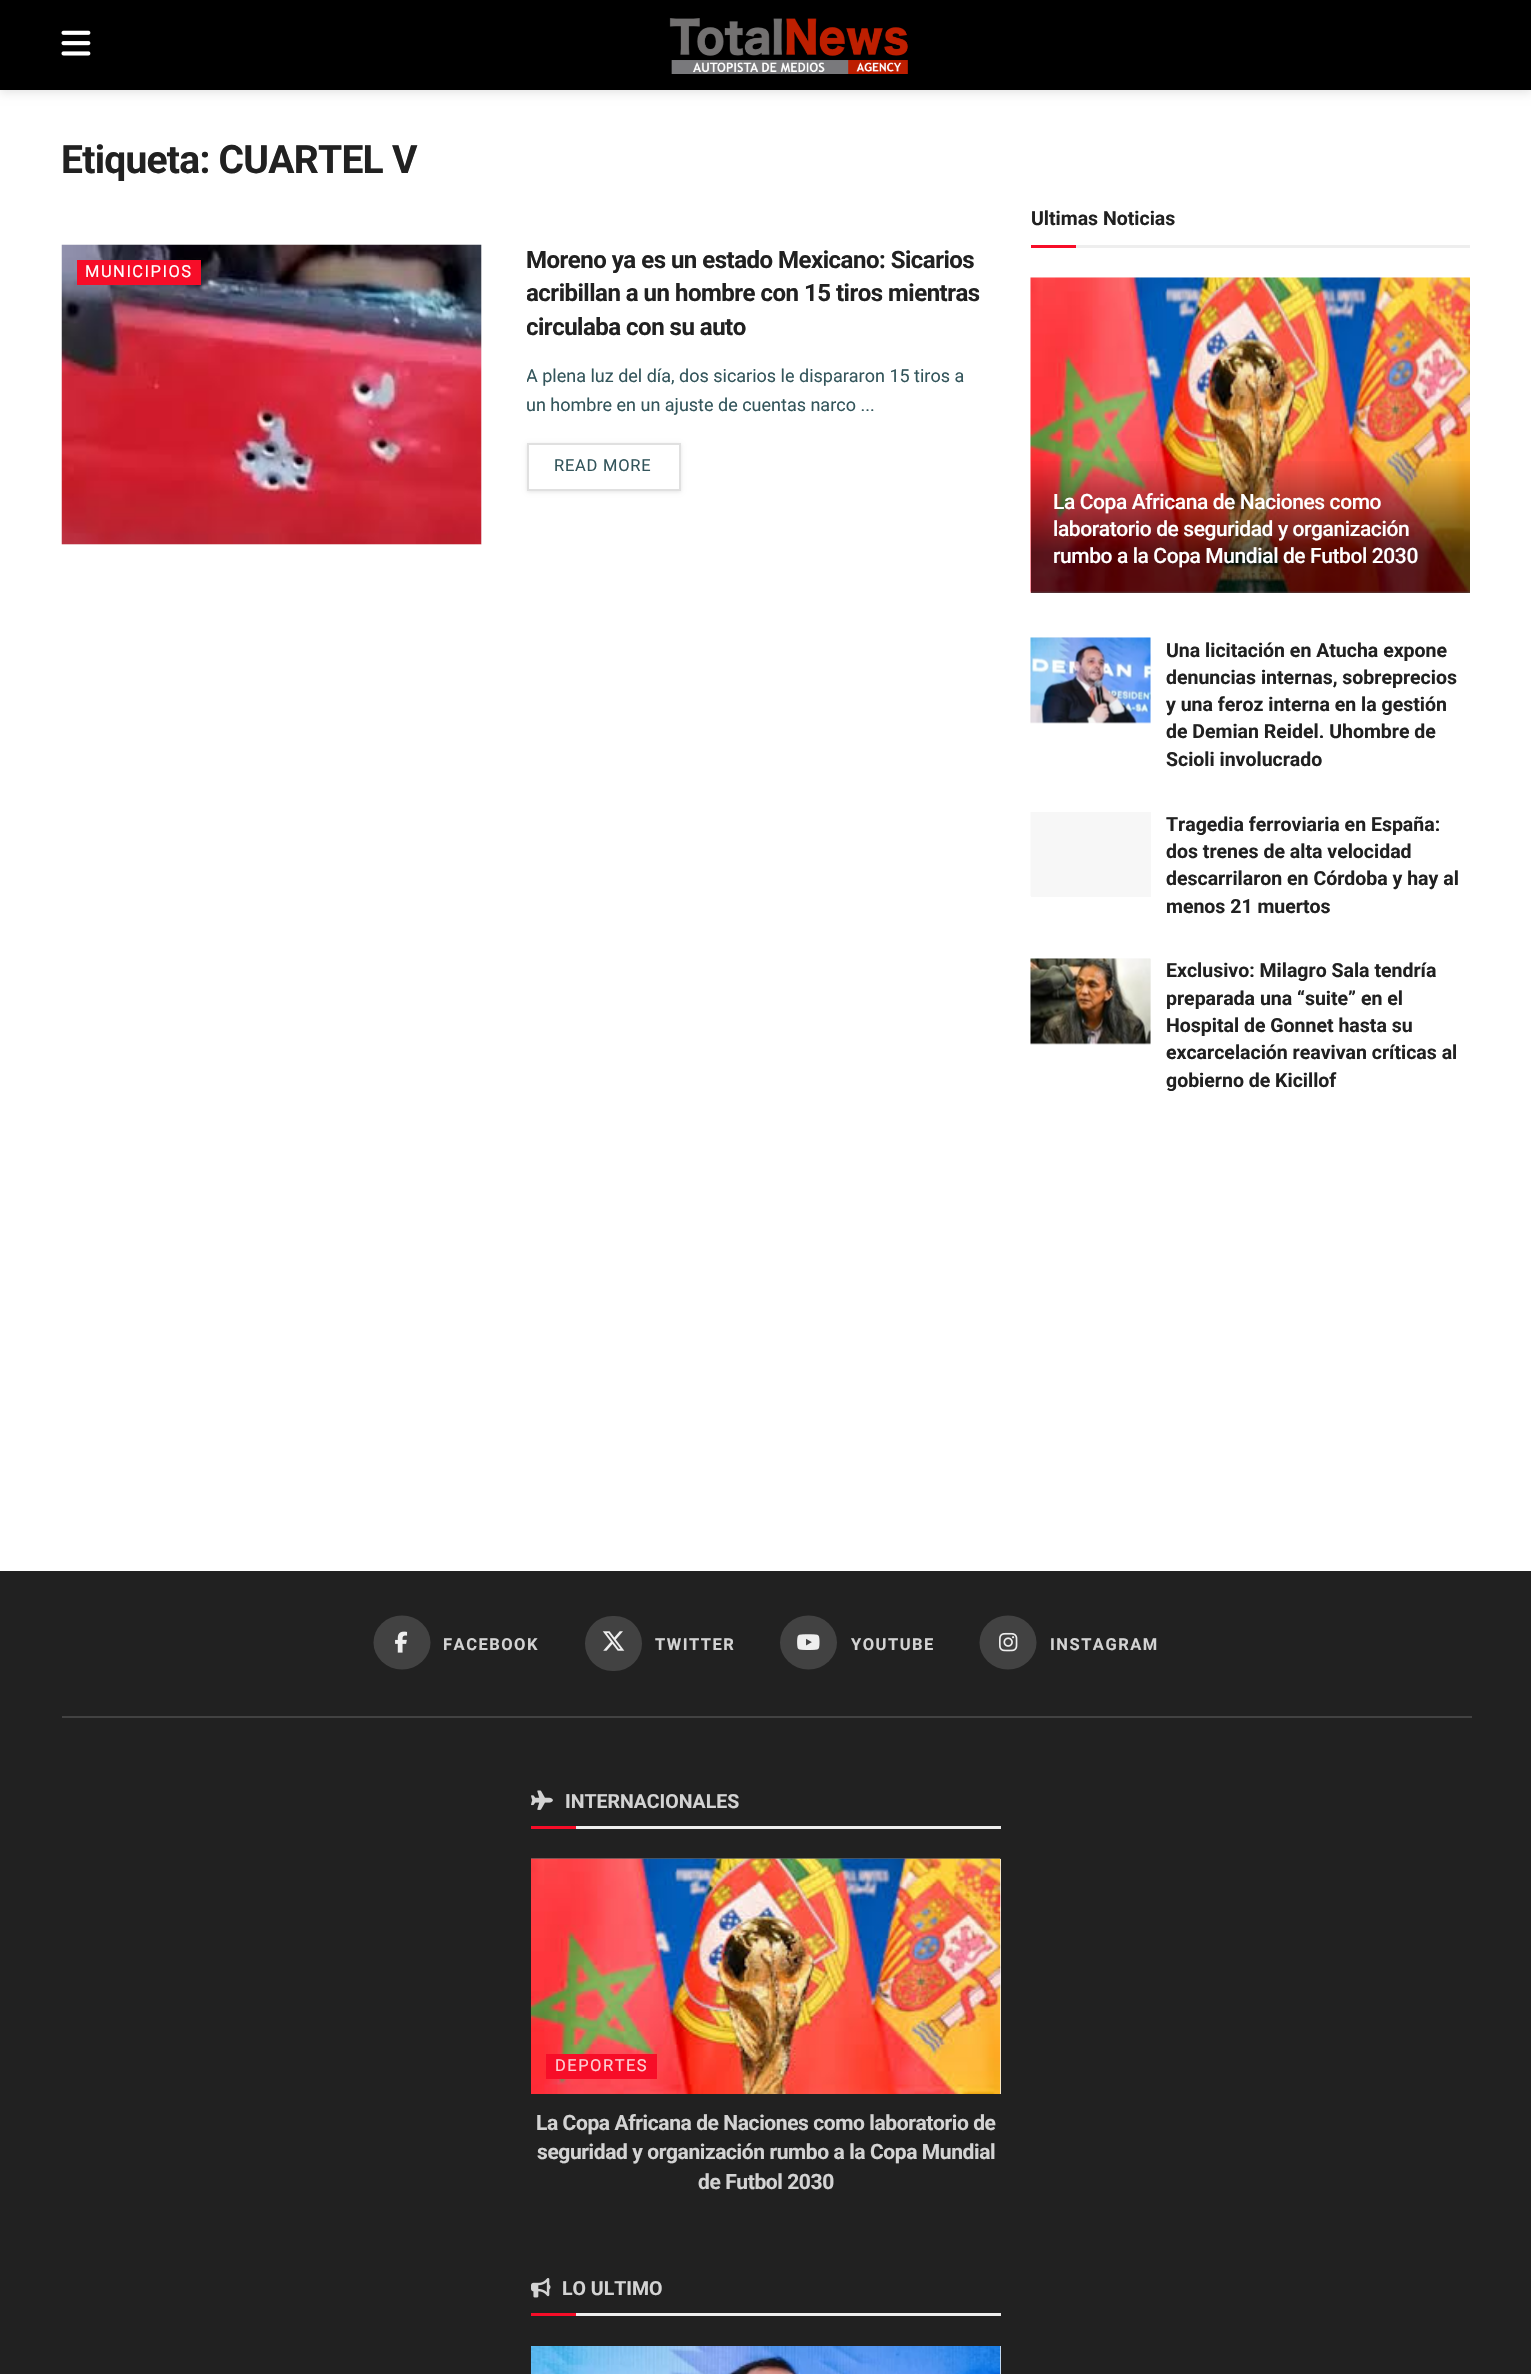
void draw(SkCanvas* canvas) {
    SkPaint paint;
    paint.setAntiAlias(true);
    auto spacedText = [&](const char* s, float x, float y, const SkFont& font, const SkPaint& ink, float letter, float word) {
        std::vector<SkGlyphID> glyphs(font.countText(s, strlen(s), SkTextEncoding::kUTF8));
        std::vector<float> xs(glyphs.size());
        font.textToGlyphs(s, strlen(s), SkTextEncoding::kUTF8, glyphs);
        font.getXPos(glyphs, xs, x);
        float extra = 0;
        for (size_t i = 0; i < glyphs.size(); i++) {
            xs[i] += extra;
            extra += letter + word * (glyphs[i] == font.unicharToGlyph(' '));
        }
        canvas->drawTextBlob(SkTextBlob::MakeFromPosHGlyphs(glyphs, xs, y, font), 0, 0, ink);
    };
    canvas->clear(0xFFFFFFFF);
    paint.setColor(0x1A000000);
    paint.setMaskFilter(SkMaskFilter::MakeBlur(kNormal_SkBlurStyle, 4.5f));
    canvas->drawRect(SkRect::MakeXYWH(0, 3, 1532, 90), paint);
    paint.setMaskFilter(nullptr);
    paint.setColor(0xFF000000);
    canvas->drawRect(SkRect::MakeXYWH(0, 0, 1531, 90), paint);
    canvas->drawImageRect(SkImages::DeferredFromEncodedData(SkData::MakeFromFileName("img1.png")), SkRect::MakeXYWH(61, 30, 30, 26), SkSamplingOptions());
    canvas->drawImageRect(SkImages::DeferredFromEncodedData(SkData::MakeFromFileName("img2.png")), SkRect::MakeXYWH(669, 18, 239, 56), SkSamplingOptions());
    SkFont font1(fontMgr->matchFamilyStyle("Roboto", SkFontStyle::Bold()), 39);
    font1.setSubpixel(true);
    paint.setColor(0xFF212121);
    spacedText("Etiqueta: CUARTEL V", 61, 173, font1, paint, -0.75f, 0);
    paint.setColor(0xFFF7F7F7);
    canvas->drawRect(SkRect::MakeXYWH(62, 245, 420, 300), paint);
    canvas->drawImageRect(SkImages::DeferredFromEncodedData(SkData::MakeFromFileName("img4.png")), SkRect::MakeXYWH(108, 244, 84, 1), SkSamplingOptions());
    canvas->drawImageRect(SkImages::DeferredFromEncodedData(SkData::MakeFromFileName("img3.png")), SkRect::MakeXYWH(61, 244, 421, 301), SkSamplingOptions());
    paint.setColor(0xFFF70D28);
    canvas->drawRect(SkRect::MakeXYWH(77, 260, 124, 25), paint);
    SkFont font2(fontMgr->matchFamilyStyle("Roboto", SkFontStyle::Normal()), 16.5f);
    font2.setSubpixel(true);
    paint.setColor(0xFFFFFFFF);
    spacedText("MUNICIPIOS", 85, 277, font2, paint, 1.5f, 0);
    SkFont font3(fontMgr->matchFamilyStyle("Roboto", SkFontStyle::Bold()), 24);
    font3.setSubpixel(true);
    paint.setColor(0xFF212121);
    spacedText("Moreno ya es un estado Mexicano: Sicarios", 526, 268, font3, paint, -0.5f, 0);
    canvas->save();
    canvas->clipRect(SkRect::MakeXYWH(527, 245, 459, 253));
    spacedText("acribillan a un hombre con 15 tiros mientras", 526, 301, font3, paint, -0.5f, 0);
    spacedText("circulaba con su auto", 526, 335, font3, paint, -0.5f, 0);
    SkFont font4(fontMgr->matchFamilyStyle("Roboto", SkFontStyle::Normal()), 18);
    font4.setSubpixel(true);
    paint.setColor(0xFF33555B);
    canvas->drawString("A plena luz del día, dos sicarios le dispararon 15 tiros a", 526, 382, font4, paint);
    canvas->restore();
    canvas->drawString("un hombre en un ajuste de cuentas narco ...", 526, 411, font4, paint);
    canvas->save();
    canvas->clipPath(SkPathBuilder(SkPathFillType::kEvenOdd).moveTo(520, 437).lineTo(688, 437).lineTo(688, 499).lineTo(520, 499).close().moveTo(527, 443).lineTo(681, 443).lineTo(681, 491).lineTo(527, 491).close().detach(), true);
    paint.setColor(0x1A000000);
    paint.setMaskFilter(SkMaskFilter::MakeBlur(kNormal_SkBlurStyle, 2));
    canvas->drawRect(SkRect::MakeXYWH(527, 444, 154, 48), paint);
    paint.setMaskFilter(nullptr);
    canvas->restore();
    paint.setStyle(SkPaint::kStroke_Style);
    paint.setStrokeWidth(2);
    paint.setColor(0xFFE0E0E0);
    canvas->drawRect(SkRect::MakeXYWH(528, 444, 152, 46), paint);
    paint.setStyle(SkPaint::kFill_Style);
    paint.setColor(0xFF33555B);
    spacedText("READ MORE", 554, 471, font2, paint, 0.75f, 0);
    paint.setColor(0xFFEEEEEE);
    canvas->drawRect(SkRect::MakeXYWH(1076, 245, 394, 3), paint);
    SkFont font5(fontMgr->matchFamilyStyle("Roboto", SkFontStyle::Bold()), 19.5f);
    font5.setSubpixel(true);
    paint.setColor(0xFF212121);
    canvas->drawString("Ultimas Noticias", 1031, 225, font5, paint);
    paint.setColor(0xFFF70D28);
    canvas->drawRect(SkRect::MakeXYWH(1031, 245, 45, 3), paint);
    paint.setColor(0xFFF7F7F7);
    canvas->drawRect(SkRect::MakeXYWH(1031, 591, 439, 2), paint);
    canvas->drawImageRect(SkImages::DeferredFromEncodedData(SkData::MakeFromFileName("img5.png")), SkRect::MakeXYWH(1030, 277, 439, 316), SkSamplingOptions());
    canvas->drawImageRect(SkImages::DeferredFromEncodedData(SkData::MakeFromFileName("img6.png")), SkRect::MakeXYWH(1030, 277, 440, 316), SkSamplingOptions());
    {
        const SkColor colors[] = {0x00000000, 0xA6000000};
        const float stops[] = {0, 0.7f};
        const SkPoint ends[] = {{1250, 458}, {1250, 593}};
        paint.setShader(SkGradientShader::MakeLinear(ends, colors, stops, 2, SkTileMode::kClamp));
        paint.setAlpha(255);
    }
    canvas->drawRect(SkRect::MakeXYWH(1031, 461, 439, 132), paint);
    SkFont font6(fontMgr->matchFamilyStyle("Roboto", SkFontStyle(500, SkFontStyle::kNormal_Width, SkFontStyle::kUpright_Slant)), 21);
    font6.setSubpixel(true);
    paint.setShader(nullptr);
    paint.setColor(0xFFFFFFFF);
    spacedText("La Copa Africana de Naciones como", 1053, 509, font6, paint, -0.4f, 0);
    spacedText("laboratorio de seguridad y organización", 1053, 536, font6, paint, -0.4f, 0);
    spacedText("rumbo a la Copa Mundial de Futbol 2030", 1053, 563, font6, paint, -0.4f, 0);
    paint.setColor(0xFFF7F7F7);
    canvas->drawRect(SkRect::MakeXYWH(1031, 638, 120, 85), paint);
    canvas->drawImageRect(SkImages::DeferredFromEncodedData(SkData::MakeFromFileName("img7.png")), SkRect::MakeXYWH(1030, 637, 120, 86), SkSamplingOptions());
    canvas->drawImageRect(SkImages::DeferredFromEncodedData(SkData::MakeFromFileName("img8.png")), SkRect::MakeXYWH(1030, 637, 121, 87), SkSamplingOptions());
    paint.setColor(0xFF212121);
    canvas->drawString("Una licitación en Atucha expone", 1166, 657, font5, paint);
    canvas->drawString("denuncias internas, sobreprecios", 1166, 684, font5, paint);
    canvas->drawString("y una feroz interna en la gestión", 1166, 711, font5, paint);
    canvas->drawString("de Demian Reidel. Uhombre de", 1166, 738, font5, paint);
    canvas->drawString("Scioli involucrado", 1166, 766, font5, paint);
    paint.setColor(0xFFF7F7F7);
    canvas->drawRect(SkRect::MakeXYWH(1031, 812, 120, 85), paint);
    paint.setColor(0xFFFBFBFB);
    canvas->drawRect(SkRect::MakeXYWH(1030, 812, 1, 84), paint);
    paint.setColor(0xFF212121);
    canvas->drawString("Tragedia ferroviaria en España:", 1166, 831, font5, paint);
    canvas->drawString("dos trenes de alta velocidad", 1166, 858, font5, paint);
    canvas->drawString("descarrilaron en Córdoba y hay al", 1166, 885, font5, paint);
    canvas->drawString("menos 21 muertos", 1166, 913, font5, paint);
    paint.setColor(0xFFF7F7F7);
    canvas->drawRect(SkRect::MakeXYWH(1031, 959, 120, 85), paint);
    canvas->drawImageRect(SkImages::DeferredFromEncodedData(SkData::MakeFromFileName("img7.png")), SkRect::MakeXYWH(1030, 958, 120, 86), SkSamplingOptions());
    canvas->drawImageRect(SkImages::DeferredFromEncodedData(SkData::MakeFromFileName("img9.png")), SkRect::MakeXYWH(1030, 958, 121, 87), SkSamplingOptions());
    paint.setColor(0xFF212121);
    canvas->drawString("Exclusivo: Milagro Sala tendría", 1166, 977, font5, paint);
    canvas->drawString("preparada una “suite” en el", 1166, 1005, font5, paint);
    canvas->drawString("Hospital de Gonnet hasta su", 1166, 1032, font5, paint);
    canvas->drawString("excarcelación reavivan críticas al", 1166, 1059, font5, paint);
    canvas->drawString("gobierno de Kicillof", 1166, 1087, font5, paint);
    canvas->drawRect(SkRect::MakeXYWH(0, 1571, 1531, 803), paint);
    paint.setColor(0xFF424242);
    canvas->drawRect(SkRect::MakeXYWH(62, 1716, 1410, 2), paint);
    canvas->drawOval(SkRect::MakeXYWH(373.5f, 1615.5f, 57, 54), paint);
    canvas->drawImageRect(SkImages::DeferredFromEncodedData(SkData::MakeFromFileName("img10.png")), SkRect::MakeXYWH(395, 1631, 13, 22), SkSamplingOptions());
    SkFont font7(fontMgr->matchFamilyStyle("Roboto", SkFontStyle::Bold()), 16.5f);
    font7.setSubpixel(true);
    paint.setColor(0xFFD3D3D3);
    spacedText("FACEBOOK", 443, 1650, font7, paint, 1.5f, 0);
    paint.setColor(0xFF424242);
    canvas->drawRoundRect(SkRect::MakeXYWH(585, 1616, 57, 55), 27.5f, 27.5f, paint);
    canvas->drawImageRect(SkImages::DeferredFromEncodedData(SkData::MakeFromFileName("img11.png")), SkRect::MakeXYWH(602, 1631, 23, 20), SkSamplingOptions());
    paint.setColor(0xFFD3D3D3);
    spacedText("TWITTER", 655, 1650, font7, paint, 1.5f, 0);
    paint.setColor(0xFF424242);
    canvas->drawOval(SkRect::MakeXYWH(780, 1615.5f, 57, 54), paint);
    canvas->drawImageRect(SkImages::DeferredFromEncodedData(SkData::MakeFromFileName("img12.png")), SkRect::MakeXYWH(797, 1634, 23, 16), SkSamplingOptions());
    paint.setColor(0xFFD3D3D3);
    spacedText("YOUTUBE", 851, 1650, font7, paint, 1.5f, 0);
    paint.setColor(0xFF424242);
    canvas->drawOval(SkRect::MakeXYWH(979.5f, 1615.5f, 57, 54), paint);
    canvas->drawImageRect(SkImages::DeferredFromEncodedData(SkData::MakeFromFileName("img13.png")), SkRect::MakeXYWH(999, 1632, 19, 20), SkSamplingOptions());
    paint.setColor(0xFFD3D3D3);
    spacedText("INSTAGRAM", 1050, 1650, font7, paint, 1.5f, 0);
    paint.setColor(0xFFEEEEEE);
    canvas->drawRect(SkRect::MakeXYWH(576, 1826, 425, 3), paint);
    canvas->drawImageRect(SkImages::DeferredFromEncodedData(SkData::MakeFromFileName("img14.png")), SkRect::MakeXYWH(531, 1790, 22, 20), SkSamplingOptions());
    paint.setColor(0xFFD3D3D3);
    canvas->drawString("INTERNACIONALES", 565, 1808, font5, paint);
    paint.setColor(0xFFF70D28);
    canvas->drawRect(SkRect::MakeXYWH(531, 1826, 45, 3), paint);
    paint.setColor(0xFFF7F7F7);
    canvas->drawRect(SkRect::MakeXYWH(1000, 1859, 1, 235), paint);
    canvas->drawImageRect(SkImages::DeferredFromEncodedData(SkData::MakeFromFileName("img15.png")), SkRect::MakeXYWH(531, 1858, 470, 236), SkSamplingOptions());
    canvas->drawImageRect(SkImages::DeferredFromEncodedData(SkData::MakeFromFileName("img16.png")), SkRect::MakeXYWH(531, 1858, 470, 236), SkSamplingOptions());
    paint.setColor(0xFFF70D28);
    canvas->drawRect(SkRect::MakeXYWH(546, 2054, 111, 25), paint);
    paint.setColor(0xFFFDCFD4);
    spacedText("DEPORTES", 555, 2071, font2, paint, 1.5f, 0);
    SkFont font8(fontMgr->matchFamilyStyle("Roboto", SkFontStyle::Bold()), 21);
    font8.setSubpixel(true);
    paint.setColor(0xFFD3D3D3);
    spacedText("La Copa Africana de Naciones como laboratorio de", 536, 2130, font8, paint, -0.4f, 0);
    spacedText("seguridad y organización rumbo a la Copa Mundial", 537, 2159, font8, paint, -0.4f, 0);
    spacedText("de Futbol 2030", 698, 2189, font8, paint, -0.4f, 0);
    paint.setColor(0xFFEEEEEE);
    canvas->drawRect(SkRect::MakeXYWH(576, 2313, 425, 3), paint);
    canvas->drawImageRect(SkImages::DeferredFromEncodedData(SkData::MakeFromFileName("img17.png")), SkRect::MakeXYWH(531, 2278, 20, 20), SkSamplingOptions());
    paint.setColor(0xFFD3D3D3);
    canvas->drawString("LO ULTIMO", 562, 2295, font5, paint);
    paint.setColor(0xFFF70D28);
    canvas->drawRect(SkRect::MakeXYWH(531, 2313, 45, 3), paint);
    paint.setColor(0xFFF7F7F7);
    canvas->drawRect(SkRect::MakeXYWH(1000, 2346, 1, 28), paint);
    canvas->drawImageRect(SkImages::DeferredFromEncodedData(SkData::MakeFromFileName("img18.png")), SkRect::MakeXYWH(531, 2346, 470, 28), SkSamplingOptions());
}
